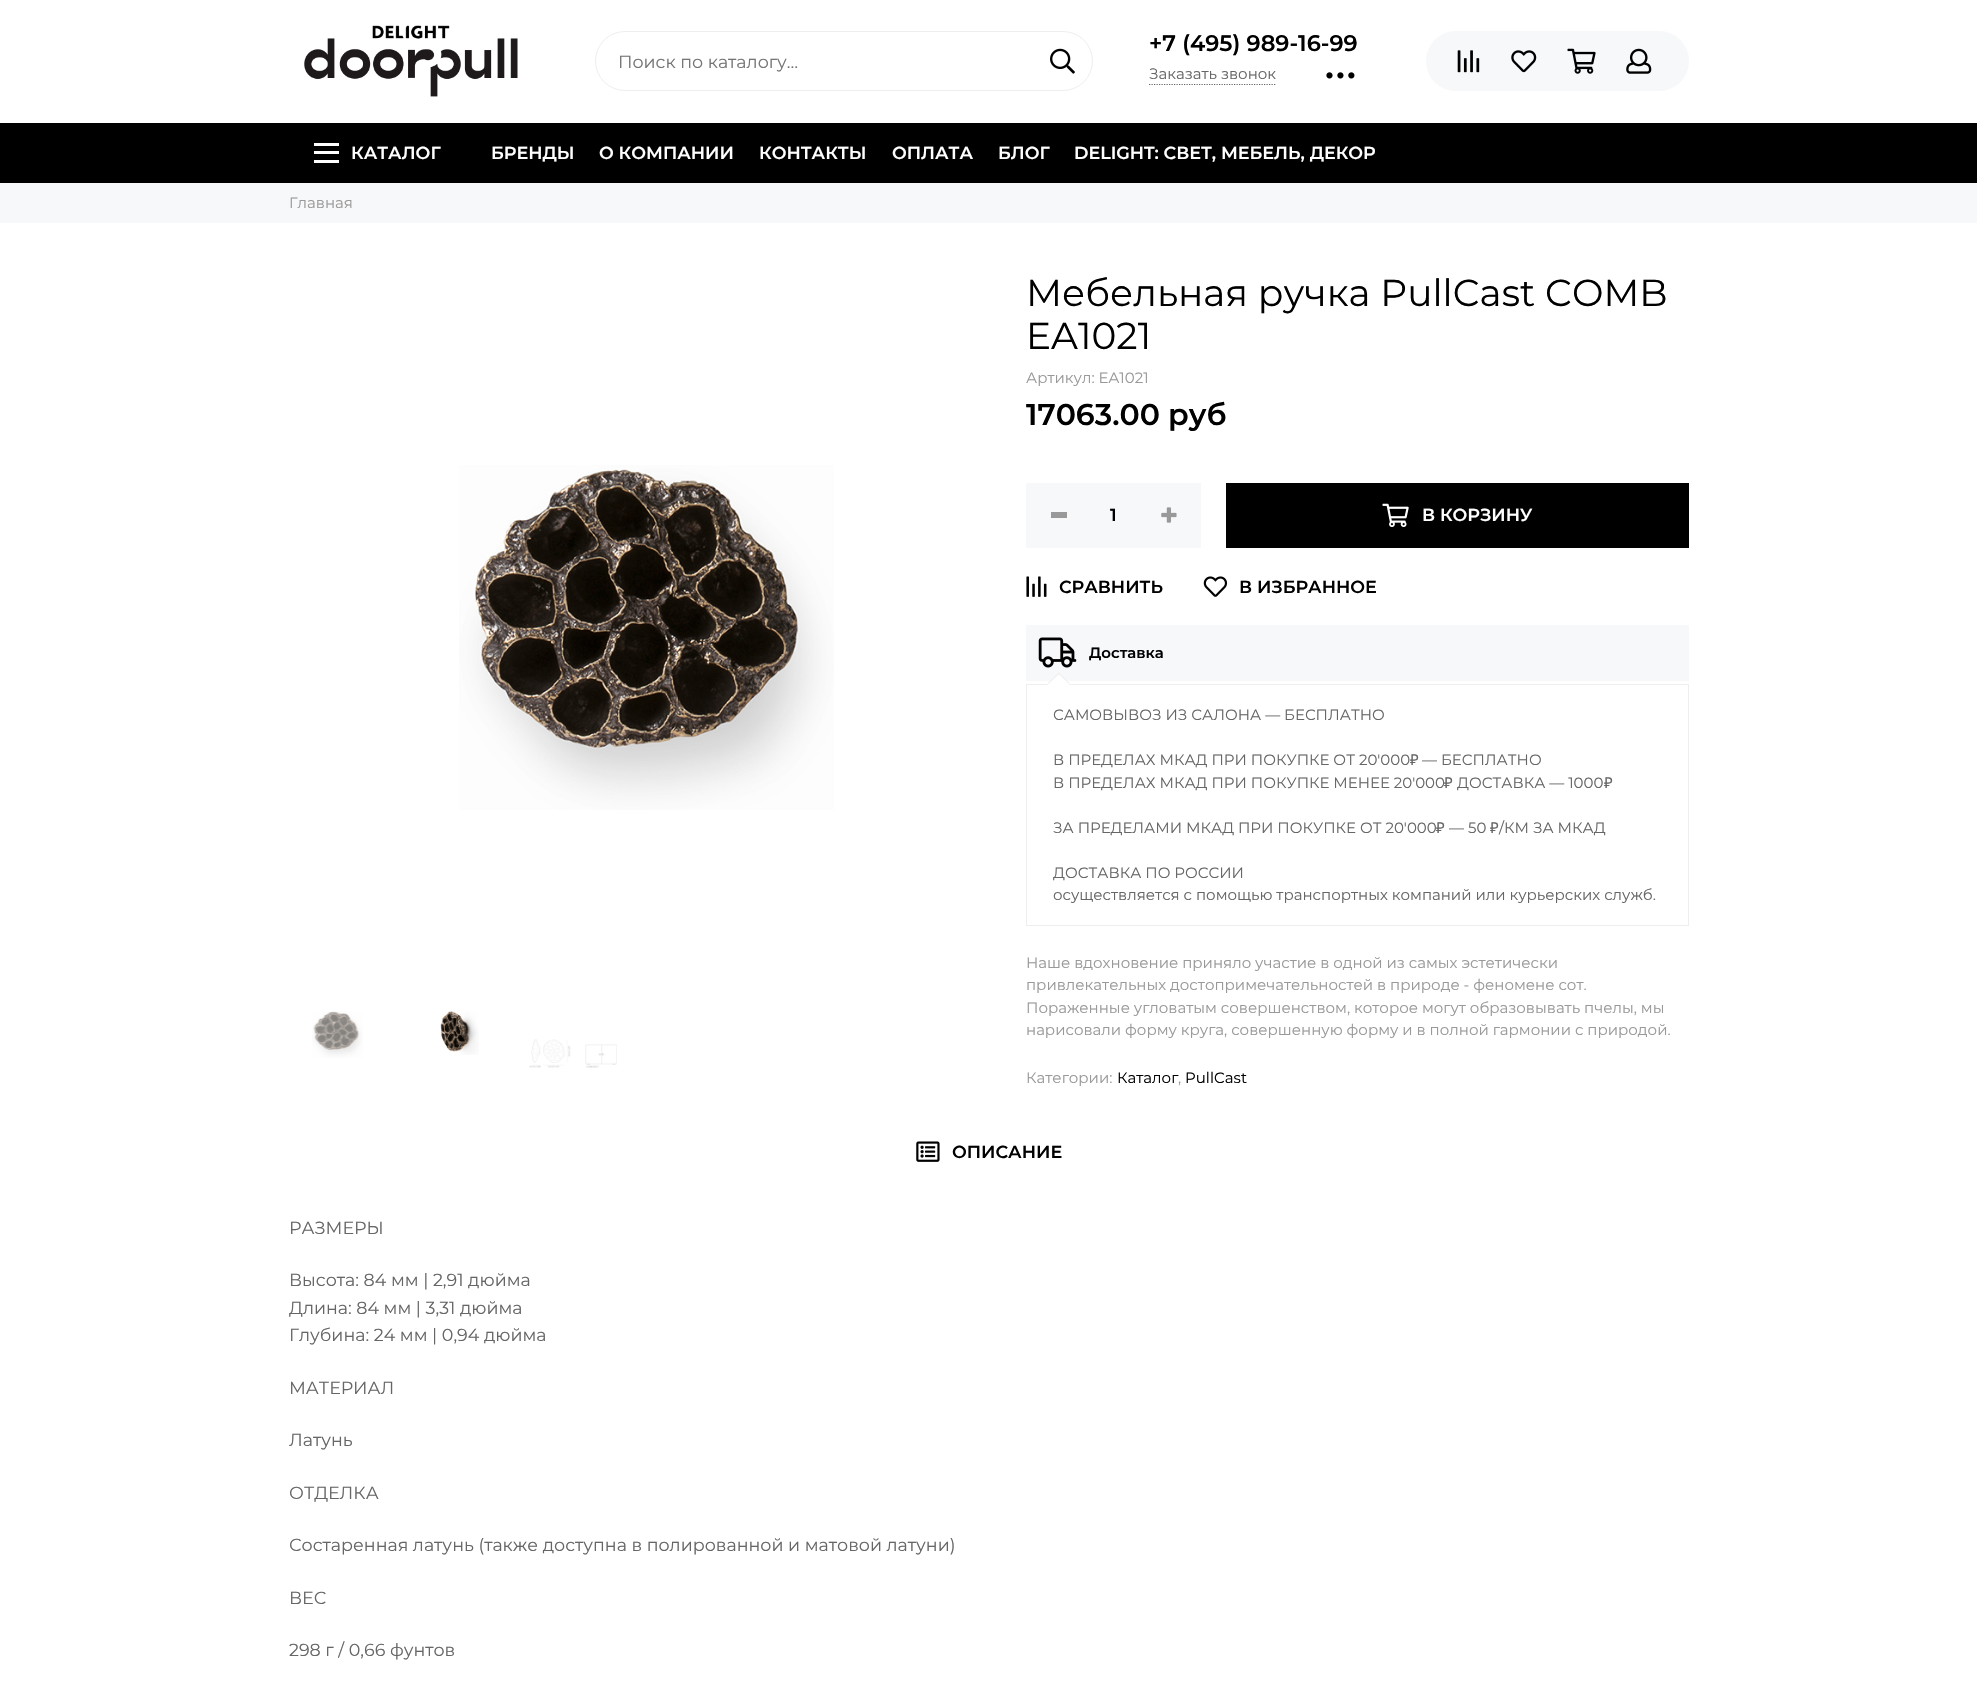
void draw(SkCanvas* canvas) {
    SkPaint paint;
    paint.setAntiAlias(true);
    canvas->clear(0xFFFFFFFF);
    canvas->drawImageRect(SkImages::DeferredFromEncodedData(SkData::MakeFromFileName("img1.png")), SkRect::MakeXYWH(304, 25, 214, 72), SkSamplingOptions());
    paint.setStyle(SkPaint::kStroke_Style);
    paint.setStrokeWidth(1);
    paint.setColor(0xFFEEEEEE);
    canvas->drawRoundRect(SkRect::MakeXYWH(595.5f, 31.5f, 497, 59), 29.5f, 29.5f, paint);
    SkFont font1(fontMgr->matchFamilyStyle("Montserrat", SkFontStyle::Normal()), 17.5f);
    font1.setSubpixel(true);
    paint.setStyle(SkPaint::kFill_Style);
    paint.setColor(0xFF757575);
    canvas->drawString("Поиск по каталогу…", 618, 68, font1, paint);
    canvas->drawImageRect(SkImages::DeferredFromEncodedData(SkData::MakeFromFileName("img2.png")), SkRect::MakeXYWH(1050, 48, 25, 26), SkSamplingOptions());
    SkFont font2(fontMgr->matchFamilyStyle("Montserrat", SkFontStyle(600, SkFontStyle::kNormal_Width, SkFontStyle::kUpright_Slant)), 22.5f);
    font2.setSubpixel(true);
    paint.setColor(0xFF000000);
    canvas->drawString("+7 (495) 989-16-99", 1149, 51, font2, paint);
    paint.setStyle(SkPaint::kStroke_Style);
    paint.setStrokeWidth(1.2f);
    paint.setColor(0xFF666666);
    paint.setPathEffect(SkDashPathEffect::Make({{1.25f, 1.25f}}, 0));
    canvas->drawPath(SkPathBuilder().moveTo(1149, 84.5f).lineTo(1276, 84.5f).detach(), paint);
    paint.setPathEffect(nullptr);
    SkFont font3(fontMgr->matchFamilyStyle("Montserrat", SkFontStyle::Normal()), 15);
    font3.setSubpixel(true);
    paint.setStyle(SkPaint::kFill_Style);
    canvas->drawString("Заказать звонок", 1149, 79, font3, paint);
    canvas->drawImageRect(SkImages::DeferredFromEncodedData(SkData::MakeFromFileName("img3.png")), SkRect::MakeXYWH(1326, 72, 29, 7), SkSamplingOptions());
    paint.setColor(0xFFF7F8FA);
    canvas->drawRoundRect(SkRect::MakeXYWH(1426, 31, 263, 60), 30, 30, paint);
    canvas->drawImageRect(SkImages::DeferredFromEncodedData(SkData::MakeFromFileName("img4.png")), SkRect::MakeXYWH(1457, 50, 23, 23), SkSamplingOptions());
    canvas->drawImageRect(SkImages::DeferredFromEncodedData(SkData::MakeFromFileName("img5.png")), SkRect::MakeXYWH(1511, 50, 26, 23), SkSamplingOptions());
    canvas->drawImageRect(SkImages::DeferredFromEncodedData(SkData::MakeFromFileName("img6.png")), SkRect::MakeXYWH(1567, 48, 29, 26), SkSamplingOptions());
    canvas->drawImageRect(SkImages::DeferredFromEncodedData(SkData::MakeFromFileName("img7.png")), SkRect::MakeXYWH(1626, 48, 26, 26), SkSamplingOptions());
    paint.setColor(0xFF000000);
    canvas->drawRect(SkRect::MakeXYWH(0, 123, 1977, 60), paint);
    paint.setColor(0xFFFFFFFF);
    canvas->drawRect(SkRect::MakeXYWH(314, 143, 25, 3), paint);
    canvas->drawRect(SkRect::MakeXYWH(314, 151, 25, 3), paint);
    canvas->drawRect(SkRect::MakeXYWH(314, 160, 25, 3), paint);
    SkFont font4(fontMgr->matchFamilyStyle("Montserrat", SkFontStyle(600, SkFontStyle::kNormal_Width, SkFontStyle::kUpright_Slant)), 17.5f);
    font4.setSubpixel(true);
    canvas->drawString("КАТАЛОГ", 351, 159, font4, paint);
    canvas->drawString("БРЕНДЫ", 491, 159, font4, paint);
    canvas->drawString("О КОМПАНИИ", 599, 159, font4, paint);
    canvas->drawString("КОНТАКТЫ", 759, 159, font4, paint);
    canvas->drawString("ОПЛАТА", 892, 159, font4, paint);
    canvas->drawString("БЛОГ", 998, 159, font4, paint);
    canvas->drawString("DELIGHT: СВЕТ, МЕБЕЛЬ, ДЕКОР", 1074, 159, font4, paint);
    paint.setColor(0xFFF7F8FA);
    canvas->drawRect(SkRect::MakeXYWH(0, 183, 1977, 40), paint);
    paint.setColor(0xFF999999);
    canvas->drawString("Главная", 289, 208, font3, paint);
    canvas->drawImageRect(SkImages::DeferredFromEncodedData(SkData::MakeFromFileName("img8.png")), SkRect::MakeXYWH(459, 465, 375, 345), SkSamplingOptions());
    canvas->drawImageRect(SkImages::DeferredFromEncodedData(SkData::MakeFromFileName("img9.png")), SkRect::MakeXYWH(312, 1011, 51, 47), SkSamplingOptions());
    canvas->drawImageRect(SkImages::DeferredFromEncodedData(SkData::MakeFromFileName("img10.png")), SkRect::MakeXYWH(440, 1011, 39, 44), SkSamplingOptions());
    canvas->drawImageRect(SkImages::DeferredFromEncodedData(SkData::MakeFromFileName("img11.png")), SkRect::MakeXYWH(529, 1039, 88, 29), SkSamplingOptions());
    SkFont font5(fontMgr->matchFamilyStyle("Montserrat", SkFontStyle::Normal()), 37.5f);
    font5.setSubpixel(true);
    paint.setColor(0xFF000000);
    canvas->drawString("Мебельная ручка PullCast COMB", 1026, 306, font5, paint);
    canvas->drawString("EA1021", 1026, 349, font5, paint);
    paint.setColor(0xFF999999);
    canvas->drawString("Артикул: EA1021", 1026, 383, font3, paint);
    SkFont font6(fontMgr->matchFamilyStyle("Montserrat", SkFontStyle(600, SkFontStyle::kNormal_Width, SkFontStyle::kUpright_Slant)), 30);
    font6.setSubpixel(true);
    paint.setColor(0xFF000000);
    canvas->drawString("17063.00 руб", 1026, 425, font6, paint);
    paint.setColor(0xFFF7F8FA);
    canvas->drawRect(SkRect::MakeXYWH(1026, 483, 175, 65), paint);
    paint.setColor(0xFF999999);
    canvas->drawRect(SkRect::MakeXYWH(1051, 512, 16, 6), paint);
    paint.setColor(0xFF000000);
    canvas->drawString("1", 1110, 521, font4, paint);
    canvas->drawImageRect(SkImages::DeferredFromEncodedData(SkData::MakeFromFileName("img12.png")), SkRect::MakeXYWH(1161, 507, 16, 16), SkSamplingOptions());
    canvas->drawRect(SkRect::MakeXYWH(1226, 483, 463, 65), paint);
    canvas->drawImageRect(SkImages::DeferredFromEncodedData(SkData::MakeFromFileName("img13.png")), SkRect::MakeXYWH(1382, 503, 27, 25), SkSamplingOptions());
    paint.setColor(0xFFFFFFFF);
    canvas->drawString("В КОРЗИНУ", 1422, 521, font4, paint);
    canvas->drawImageRect(SkImages::DeferredFromEncodedData(SkData::MakeFromFileName("img14.png")), SkRect::MakeXYWH(1026, 576, 21, 21), SkSamplingOptions());
    paint.setColor(0xFF000000);
    canvas->drawString("СРАВНИТЬ", 1059, 593, font4, paint);
    canvas->drawImageRect(SkImages::DeferredFromEncodedData(SkData::MakeFromFileName("img15.png")), SkRect::MakeXYWH(1203, 576, 25, 21), SkSamplingOptions());
    canvas->drawString("В ИЗБРАННОЕ", 1239, 593, font4, paint);
    paint.setColor(0xFFF7F8FA);
    canvas->drawRect(SkRect::MakeXYWH(1026, 625, 663, 56), paint);
    canvas->drawImageRect(SkImages::DeferredFromEncodedData(SkData::MakeFromFileName("img16.png")), SkRect::MakeXYWH(1038, 637, 39, 31), SkSamplingOptions());
    SkFont font7(fontMgr->matchFamilyStyle("Montserrat", SkFontStyle(600, SkFontStyle::kNormal_Width, SkFontStyle::kUpright_Slant)), 15);
    font7.setSubpixel(true);
    paint.setColor(0xFF000000);
    canvas->drawString("Доставка", 1089, 658, font7, paint);
    paint.setStyle(SkPaint::kStroke_Style);
    paint.setStrokeWidth(1);
    paint.setColor(0xFFEEEEEE);
    canvas->drawRect(SkRect::MakeXYWH(1026.5f, 684.5f, 662, 241), paint);
    paint.setStyle(SkPaint::kFill_Style);
    canvas->drawPath(SkPathBuilder().moveTo(1071, 685).lineTo(1046, 685).lineTo(1059, 672.5f).close().detach(), paint);
    paint.setColor(0xFFFFFFFF);
    canvas->drawPath(SkPathBuilder().moveTo(1071, 686).lineTo(1046, 686).lineTo(1059, 674).close().detach(), paint);
    paint.setColor(0xFF666666);
    canvas->drawString("САМОВЫВОЗ ИЗ САЛОНА — БЕСПЛАТНО", 1053, 720, font3, paint);
    canvas->drawString("В ПРЕДЕЛАХ МКАД ПРИ ПОКУПКЕ ОТ 20'000", 1053, 765, font3, paint);
    SkFont font8(fontMgr->matchFamilyStyle("Noto Sans", SkFontStyle::Normal()), 15);
    font8.setSubpixel(true);
    canvas->drawString("₽", 1410, 765, font8, paint);
    canvas->drawString("— БЕСПЛАТНО", 1422, 765, font3, paint);
    canvas->drawString("В ПРЕДЕЛАХ МКАД ПРИ ПОКУПКЕ МЕНЕЕ 20'000", 1053, 788, font3, paint);
    canvas->drawString("₽", 1444, 788, font8, paint);
    canvas->drawString("ДОСТАВКА — 1000", 1457, 788, font3, paint);
    canvas->drawString("₽", 1604, 788, font8, paint);
    canvas->drawString("ЗА ПРЕДЕЛАМИ МКАД ПРИ ПОКУПКЕ ОТ 20'000", 1053, 833, font3, paint);
    canvas->drawString("₽", 1436, 833, font8, paint);
    canvas->drawString("— 50", 1449, 833, font3, paint);
    canvas->drawString("₽", 1490, 833, font8, paint);
    canvas->drawString("/КМ ЗА МКАД", 1499, 833, font3, paint);
    canvas->drawString("ДОСТАВКА ПО РОССИИ", 1053, 878, font3, paint);
    canvas->drawString("осуществляется с помощью транспортных компаний или курьерских служб.", 1053, 900, font3, paint);
    paint.setColor(0xFF999999);
    canvas->drawString("Наше вдохновение приняло участие в одной из самых эстетически", 1026, 968, font3, paint);
    canvas->drawString("привлекательных достопримечательностей в природе - феномене сот.", 1026, 990, font3, paint);
    canvas->drawString("Пораженные угловатым совершенством, которое могут образовывать пчелы, мы", 1026, 1013, font3, paint);
    canvas->drawString("нарисовали форму круга, совершенную форму и в полной гармонии с природой.", 1026, 1035, font3, paint);
    canvas->drawString("Категории:", 1026, 1083, font3, paint);
    paint.setColor(0xFF000000);
    canvas->drawString("Каталог", 1117, 1083, font3, paint);
    paint.setColor(0xFF999999);
    canvas->drawString(",", 1178, 1083, font3, paint);
    paint.setColor(0xFF000000);
    canvas->drawString("PullCast", 1185, 1083, font3, paint);
    canvas->drawImageRect(SkImages::DeferredFromEncodedData(SkData::MakeFromFileName("img17.png")), SkRect::MakeXYWH(916, 1141, 24, 21), SkSamplingOptions());
    canvas->drawString("ОПИСАНИЕ", 952, 1158, font4, paint);
    paint.setColor(0xFF666666);
    canvas->drawString("РАЗМЕРЫ", 289, 1234, font1, paint);
    canvas->drawString("Высота: 84 мм | 2,91 дюйма", 289, 1286, font1, paint);
    canvas->drawString("Длина: 84 мм | 3,31 дюйма", 289, 1314, font1, paint);
    canvas->drawString("Глубина: 24 мм | 0,94 дюйма", 289, 1341, font1, paint);
    canvas->drawString("МАТЕРИАЛ", 289, 1394, font1, paint);
    canvas->drawString("Латунь", 289, 1446, font1, paint);
    canvas->drawString("ОТДЕЛКА", 289, 1499, font1, paint);
    canvas->drawString("Состаренная латунь (также доступна в полированной и матовой латуни)", 289, 1551, font1, paint);
    canvas->drawString("ВЕС", 289, 1604, font1, paint);
    canvas->drawString("298 г / 0,66 фунтов", 289, 1656, font1, paint);
}
